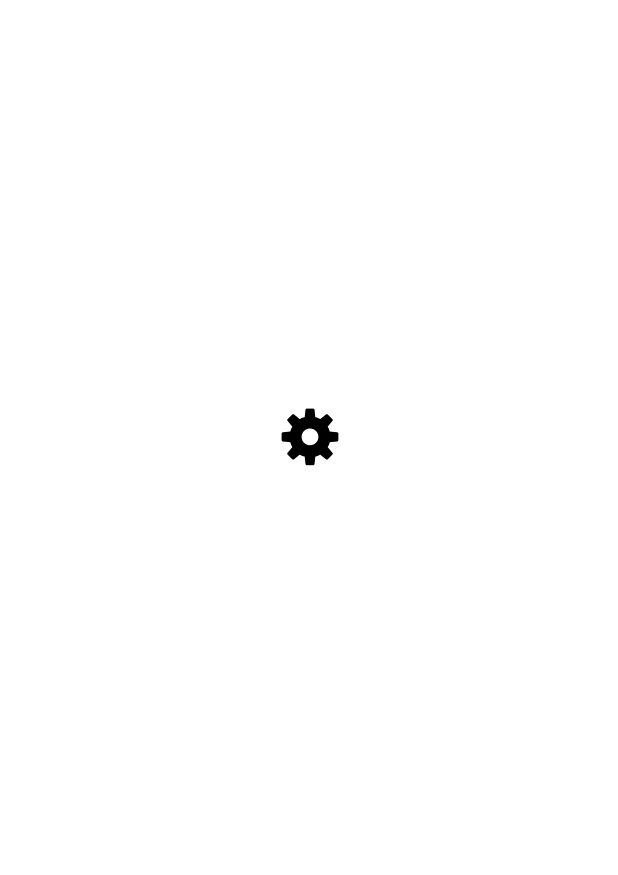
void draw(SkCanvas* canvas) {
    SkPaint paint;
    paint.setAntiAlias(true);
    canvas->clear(0xFFFFFFFF);
    canvas->drawImageRect(SkImages::DeferredFromEncodedData(SkData::MakeFromFileName("img1.png")), SkRect::MakeXYWH(281, 408, 58, 58), SkSamplingOptions());
}
